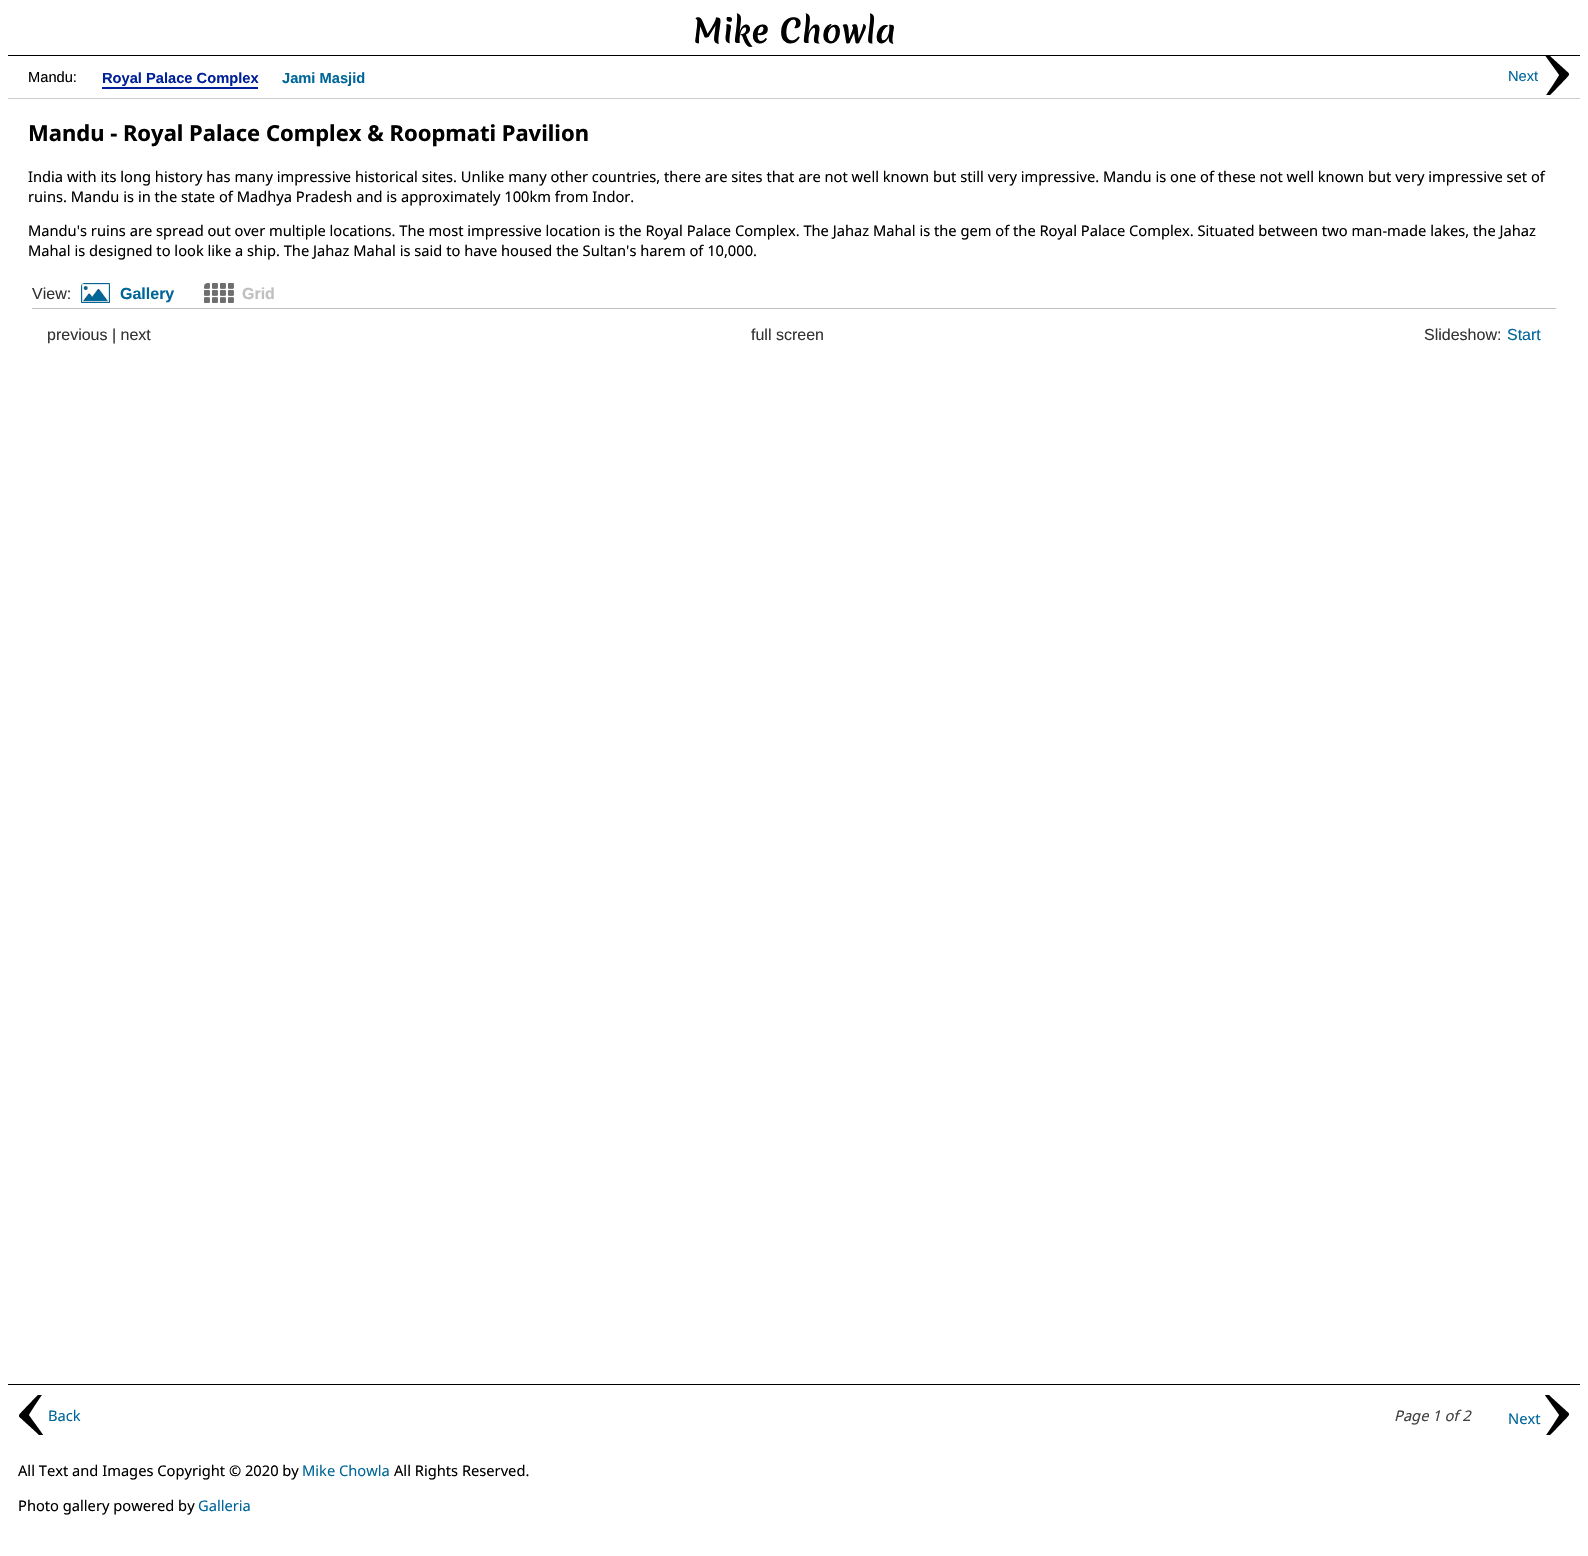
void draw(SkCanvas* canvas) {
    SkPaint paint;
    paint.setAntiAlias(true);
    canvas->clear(0xFFFFFFFF);
    paint.setColor(0xFF000000);
    canvas->drawRect(SkRect::MakeXYWH(8, 55, 1572, 1), paint);
    SkFont font1(fontMgr->matchFamilyStyle("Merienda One", SkFontStyle::Normal()), 32);
    font1.setSubpixel(true);
    canvas->drawString("Mike Chowla", 693, 43, font1, paint);
    paint.setColor(0xFFCCCCCC);
    canvas->drawRect(SkRect::MakeXYWH(8, 98, 1572, 1), paint);
    SkFont font2(fontMgr->matchFamilyStyle("Liberation Sans", SkFontStyle::Normal()), 14.67f);
    font2.setSubpixel(true);
    paint.setColor(0xFF000000);
    canvas->drawString("Mandu:", 28, 82, font2, paint);
    paint.setColor(0xFF002099);
    canvas->drawRect(SkRect::MakeXYWH(102, 87, 156, 2), paint);
    SkFont font3(fontMgr->matchFamilyStyle("Liberation Sans", SkFontStyle::Bold()), 14.67f);
    font3.setSubpixel(true);
    canvas->drawString("Royal Palace Complex", 102, 83, font3, paint);
    paint.setColor(0xFF006699);
    canvas->drawString("Jami Masjid", 282, 83, font3, paint);
    canvas->drawImageRect(SkImages::DeferredFromEncodedData(SkData::MakeFromFileName("img1.png")), SkRect::MakeXYWH(1545, 56, 24, 39), SkSamplingOptions());
    canvas->drawString("Next", 1508, 81, font2, paint);
    SkFont font4(fontMgr->matchFamilyStyle("Noto Sans", SkFontStyle::Bold()), 22);
    font4.setSubpixel(true);
    paint.setColor(0xFF000000);
    canvas->drawString("Mandu - Royal Palace Complex & Roopmati Pavilion", 28, 141, font4, paint);
    SkFont font5(fontMgr->matchFamilyStyle("Noto Sans", SkFontStyle::Normal()), 14.67f);
    font5.setSubpixel(true);
    canvas->drawString("India with its long history has many impressive historical sites. Unlike many other countries, there are sites that are not well known but still very impressive. Mandu is one of these not well known but very impressive set of", 28, 182, font5, paint);
    canvas->drawString("ruins. Mandu is in the state of Madhya Pradesh and is approximately 100km from Indor.", 28, 202, font5, paint);
    canvas->drawString("Mandu's ruins are spread out over multiple locations. The most impressive location is the Royal Palace Complex. The Jahaz Mahal is the gem of the Royal Palace Complex. Situated between two man-made lakes, the Jahaz", 28, 236, font5, paint);
    canvas->drawString("Mahal is designed to look like a ship. The Jahaz Mahal is said to have housed the Sultan's harem of 10,000.", 28, 256, font5, paint);
    SkFont font6(fontMgr->matchFamilyStyle("Liberation Sans", SkFontStyle::Normal()), 16);
    font6.setSubpixel(true);
    paint.setColor(0xFF333333);
    canvas->drawString("View:", 32, 299, font6, paint);
    paint.setColor(0xFFC0C0C0);
    canvas->drawRect(SkRect::MakeXYWH(32, 308, 1524, 1), paint);
    canvas->drawImageRect(SkImages::DeferredFromEncodedData(SkData::MakeFromFileName("img2.png")), SkRect::MakeXYWH(81, 283, 29, 20), SkSamplingOptions());
    SkFont font7(fontMgr->matchFamilyStyle("Liberation Sans", SkFontStyle::Bold()), 16);
    font7.setSubpixel(true);
    paint.setColor(0xFF006699);
    canvas->drawString("Gallery", 120, 299, font7, paint);
    canvas->drawImageRect(SkImages::DeferredFromEncodedData(SkData::MakeFromFileName("img3.png")), SkRect::MakeXYWH(204, 283, 30, 20), SkSamplingOptions());
    paint.setColor(0xFFC0C0C0);
    canvas->drawString("Grid", 242, 299, font7, paint);
    paint.setColor(0xFF333333);
    canvas->drawString("previous | next", 47, 340, font6, paint);
    canvas->drawString("full screen", 751, 340, font6, paint);
    canvas->drawString("Slideshow:", 1424, 340, font6, paint);
    paint.setColor(0xFF006699);
    canvas->drawString("Start", 1507, 340, font6, paint);
    paint.setColor(0xFF000000);
    canvas->drawRect(SkRect::MakeXYWH(8, 1384, 1572, 1), paint);
    canvas->drawImageRect(SkImages::DeferredFromEncodedData(SkData::MakeFromFileName("img4.png")), SkRect::MakeXYWH(19, 1395, 24, 40), SkSamplingOptions());
    paint.setColor(0xFF006699);
    canvas->drawString("Back", 48, 1421, font5, paint);
    SkFont font8(fontMgr->matchFamilyStyle("Noto Sans", SkFontStyle::Italic()), 14.67f);
    font8.setSubpixel(true);
    paint.setColor(0xFF404040);
    canvas->drawString("Page 1 of 2", 1394, 1421, font8, paint);
    canvas->drawImageRect(SkImages::DeferredFromEncodedData(SkData::MakeFromFileName("img5.png")), SkRect::MakeXYWH(1545, 1395, 24, 40), SkSamplingOptions());
    paint.setColor(0xFF006699);
    canvas->drawString("Next", 1508, 1424, font5, paint);
    paint.setColor(0xFF000000);
    canvas->drawString("All Text and Images Copyright © 2020 by", 18, 1476, font5, paint);
    paint.setColor(0xFF006699);
    canvas->drawString("Mike Chowla", 302, 1476, font5, paint);
    paint.setColor(0xFF000000);
    canvas->drawString("All Rights Reserved.", 394, 1476, font5, paint);
    canvas->drawString("Photo gallery powered by", 18, 1511, font5, paint);
    paint.setColor(0xFF006699);
    canvas->drawString("Galleria", 198, 1511, font5, paint);
}
